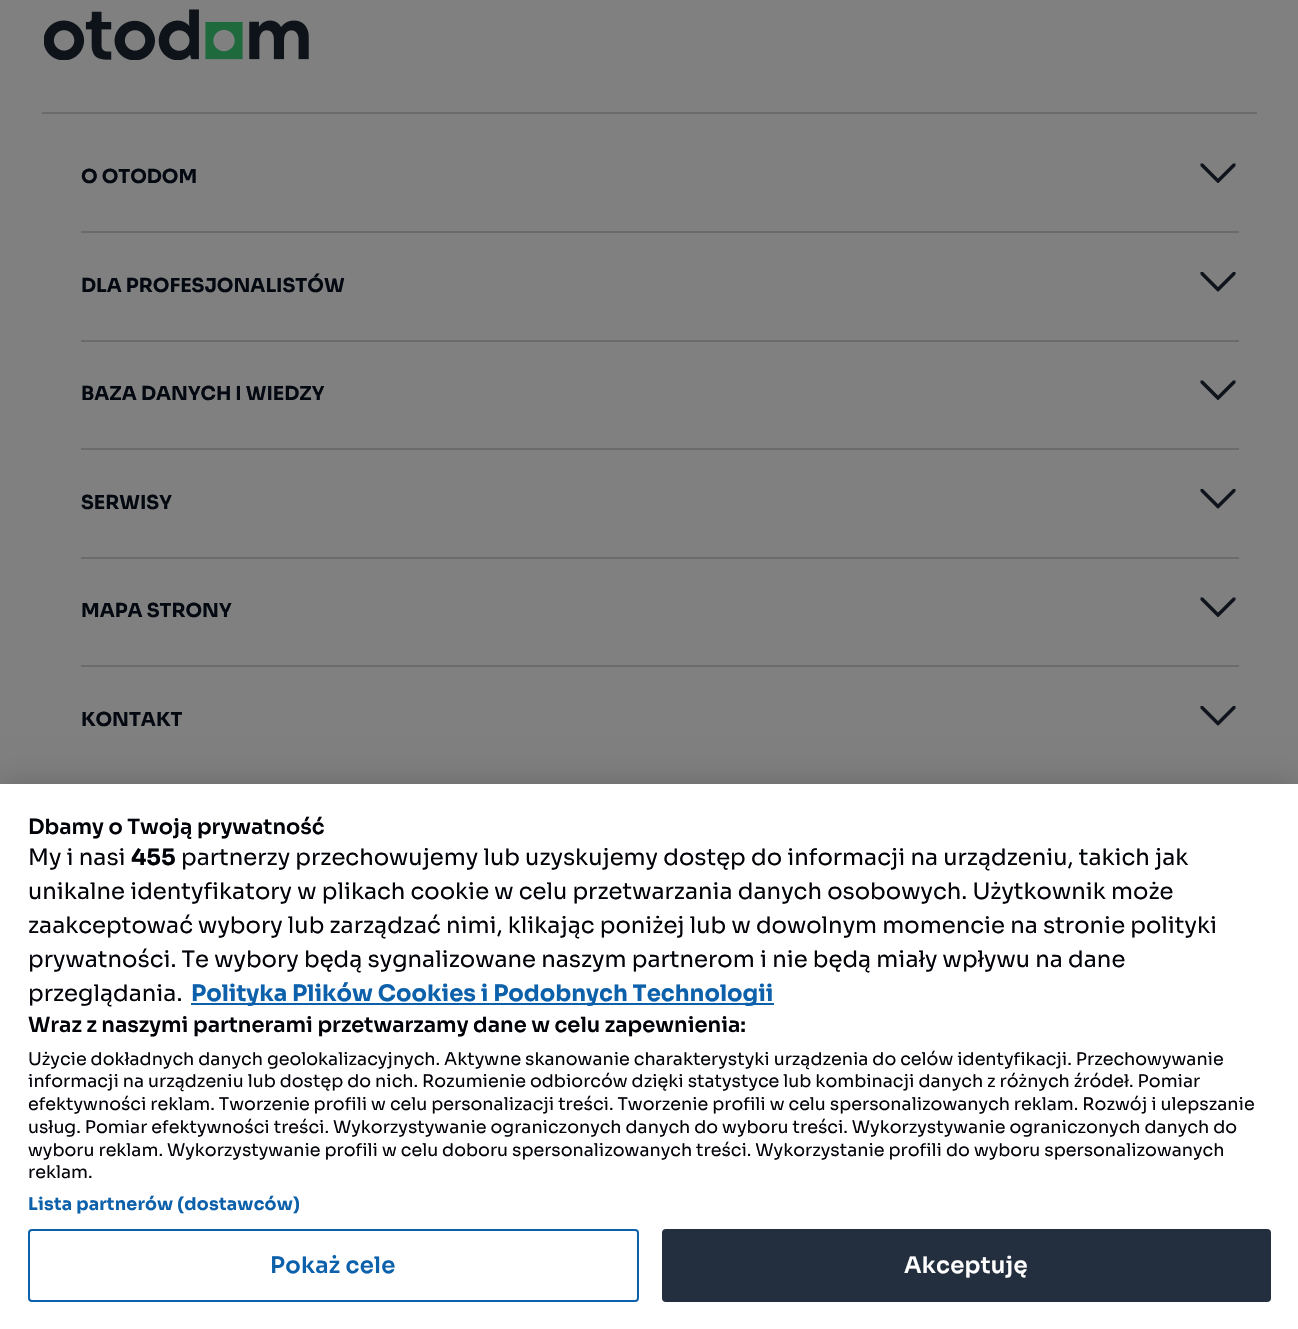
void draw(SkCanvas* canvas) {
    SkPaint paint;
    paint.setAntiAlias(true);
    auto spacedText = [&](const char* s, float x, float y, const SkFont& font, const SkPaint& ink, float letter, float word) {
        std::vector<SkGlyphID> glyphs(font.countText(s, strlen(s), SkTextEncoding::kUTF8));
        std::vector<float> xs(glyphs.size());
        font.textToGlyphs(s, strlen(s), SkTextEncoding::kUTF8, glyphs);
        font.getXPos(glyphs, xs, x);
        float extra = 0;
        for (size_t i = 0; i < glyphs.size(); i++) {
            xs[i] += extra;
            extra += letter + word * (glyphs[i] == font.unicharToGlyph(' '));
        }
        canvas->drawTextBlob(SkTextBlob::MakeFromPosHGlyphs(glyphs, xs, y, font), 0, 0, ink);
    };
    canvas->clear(0xFF808080);
    canvas->drawImageRect(SkImages::DeferredFromEncodedData(SkData::MakeFromFileName("img1.png")), SkRect::MakeXYWH(44, 9, 265, 51), SkSamplingOptions());
    paint.setColor(0xFF6A6B6D);
    canvas->drawRect(SkRect::MakeXYWH(42, 112, 1215, 2), paint);
    canvas->drawRect(SkRect::MakeXYWH(81, 231, 1158, 2), paint);
    SkFont font1(fontMgr->matchFamilyStyle("Sora", SkFontStyle::Bold()), 19.25f);
    font1.setSubpixel(true);
    paint.setColor(0xFF040911);
    canvas->drawString("O OTODOM", 81, 183, font1, paint);
    paint.setColor(0xFF0E131C);
    canvas->drawPath(SkPathBuilder(SkPathFillType::kEvenOdd).moveTo(1200.5f, 163.5f).lineTo(1203, 163.5f).lineTo(1218, 178.5f).lineTo(1233, 163.5f).lineTo(1235.5f, 163.5f).lineTo(1235.5f, 166).lineTo(1218.5f, 183).lineTo(1217.5f, 183).lineTo(1200.5f, 166).close().detach(), paint);
    paint.setColor(0xFF6A6B6D);
    canvas->drawRect(SkRect::MakeXYWH(81, 340, 1158, 2), paint);
    paint.setColor(0xFF040911);
    canvas->drawString("DLA PROFESJONALISTÓW", 81, 292, font1, paint);
    paint.setColor(0xFF0E131C);
    canvas->drawPath(SkPathBuilder(SkPathFillType::kEvenOdd).moveTo(1200.5f, 272).lineTo(1203, 272).lineTo(1218, 287).lineTo(1233, 272).lineTo(1235.5f, 272).lineTo(1235.5f, 274.5f).lineTo(1218.5f, 291.5f).lineTo(1217.5f, 291.5f).lineTo(1200.5f, 274.5f).close().detach(), paint);
    paint.setColor(0xFF6A6B6D);
    canvas->drawRect(SkRect::MakeXYWH(81, 448, 1158, 2), paint);
    paint.setColor(0xFF040911);
    canvas->drawString("BAZA DANYCH I WIEDZY", 81, 400, font1, paint);
    paint.setColor(0xFF0E131C);
    canvas->drawPath(SkPathBuilder(SkPathFillType::kEvenOdd).moveTo(1200.5f, 380.5f).lineTo(1203, 380.5f).lineTo(1218, 395.5f).lineTo(1233, 380.5f).lineTo(1235.5f, 380.5f).lineTo(1235.5f, 383).lineTo(1218.5f, 400).lineTo(1217.5f, 400).lineTo(1200.5f, 383).close().detach(), paint);
    paint.setColor(0xFF6A6B6D);
    canvas->drawRect(SkRect::MakeXYWH(81, 557, 1158, 2), paint);
    paint.setColor(0xFF040911);
    canvas->drawString("SERWISY", 81, 509, font1, paint);
    paint.setColor(0xFF0E131C);
    canvas->drawPath(SkPathBuilder(SkPathFillType::kEvenOdd).moveTo(1200.5f, 489).lineTo(1203, 489).lineTo(1218, 504).lineTo(1233, 489).lineTo(1235.5f, 489).lineTo(1235.5f, 491.5f).lineTo(1218.5f, 508.5f).lineTo(1217.5f, 508.5f).lineTo(1200.5f, 491.5f).close().detach(), paint);
    paint.setColor(0xFF6A6B6D);
    canvas->drawRect(SkRect::MakeXYWH(81, 665, 1158, 2), paint);
    paint.setColor(0xFF040911);
    canvas->drawString("MAPA STRONY", 81, 617, font1, paint);
    paint.setColor(0xFF0E131C);
    canvas->drawPath(SkPathBuilder(SkPathFillType::kEvenOdd).moveTo(1200.5f, 597.5f).lineTo(1203, 597.5f).lineTo(1218, 612.5f).lineTo(1233, 597.5f).lineTo(1235.5f, 597.5f).lineTo(1235.5f, 600).lineTo(1218.5f, 617).lineTo(1217.5f, 617).lineTo(1200.5f, 600).close().detach(), paint);
    paint.setColor(0xFF040911);
    canvas->drawString("KONTAKT", 81, 726, font1, paint);
    paint.setColor(0xFF0E131C);
    canvas->drawPath(SkPathBuilder(SkPathFillType::kEvenOdd).moveTo(1200.5f, 706).lineTo(1203, 706).lineTo(1218, 721).lineTo(1233, 706).lineTo(1235.5f, 706).lineTo(1235.5f, 708.5f).lineTo(1218.5f, 725.5f).lineTo(1217.5f, 725.5f).lineTo(1200.5f, 708.5f).close().detach(), paint);
    paint.setColor(0x33000000);
    paint.setMaskFilter(SkMaskFilter::MakeBlur(kNormal_SkBlurStyle, 16));
    canvas->drawRect(SkRect::MakeXYWH(0, 784, 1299, 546), paint);
    paint.setMaskFilter(nullptr);
    paint.setColor(0xFFFFFFFF);
    canvas->drawRect(SkRect::MakeXYWH(0, 784, 1298, 545), paint);
    SkFont font2(fontMgr->matchFamilyStyle("Sora", SkFontStyle(600, SkFontStyle::kNormal_Width, SkFontStyle::kUpright_Slant)), 21);
    font2.setSubpixel(true);
    paint.setColor(0xFF020309);
    canvas->drawString("Dbamy o Twoją prywatność", 28, 834, font2, paint);
    SkFont font3(fontMgr->matchFamilyStyle("Sora", SkFontStyle::Normal()), 22.75f);
    font3.setSubpixel(true);
    canvas->drawString("My i nasi", 28, 865, font3, paint);
    SkFont font4(fontMgr->matchFamilyStyle("Sora", SkFontStyle::Bold()), 22.75f);
    font4.setSubpixel(true);
    canvas->drawString("455", 131, 865, font4, paint);
    canvas->drawString("partnerzy przechowujemy lub uzyskujemy dostęp do informacji na urządzeniu, takich jak", 181, 865, font3, paint);
    canvas->drawString("unikalne identyfikatory w plikach cookie w celu przetwarzania danych osobowych. Użytkownik może", 28, 899, font3, paint);
    canvas->drawString("zaakceptować wybory lub zarządzać nimi, klikając poniżej lub w dowolnym momencie na stronie polityki", 28, 933, font3, paint);
    canvas->drawString("prywatności. Te wybory będą sygnalizowane naszym partnerom i nie będą miały wpływu na dane", 28, 967, font3, paint);
    canvas->drawString("przeglądania.", 28, 1001, font3, paint);
    paint.setColor(0xFF0D61AB);
    canvas->drawRect(SkRect::MakeXYWH(191, 1003, 583, 2), paint);
    canvas->drawString("Polityka Plików Cookies i Podobnych Technologii", 191, 1001, font4, paint);
    paint.setColor(0xFF020309);
    canvas->drawString("Wraz z naszymi partnerami przetwarzamy dane w celu zapewnienia:", 28, 1032, font2, paint);
    SkFont font5(fontMgr->matchFamilyStyle("Sora", SkFontStyle::Normal()), 17.5f);
    font5.setSubpixel(true);
    canvas->drawString("Użycie dokładnych danych geolokalizacyjnych. Aktywne skanowanie charakterystyki urządzenia do celów identyfikacji. Przechowywanie", 28, 1065, font5, paint);
    canvas->drawString("informacji na urządzeniu lub dostęp do nich. Rozumienie odbiorców dzięki statystyce lub kombinacji danych z różnych źródeł. Pomiar", 28, 1087, font5, paint);
    canvas->drawString("efektywności reklam. Tworzenie profili w celu personalizacji treści. Tworzenie profili w celu spersonalizowanych reklam. Rozwój i ulepszanie", 28, 1110, font5, paint);
    canvas->drawString("usług. Pomiar efektywności treści. Wykorzystywanie ograniczonych danych do wyboru treści. Wykorzystywanie ograniczonych danych do", 28, 1133, font5, paint);
    canvas->drawString("wyboru reklam. Wykorzystywanie profili w celu doboru spersonalizowanych treści. Wykorzystanie profili do wyboru spersonalizowanych", 28, 1156, font5, paint);
    canvas->drawString("reklam.", 28, 1178, font5, paint);
    SkFont font6(fontMgr->matchFamilyStyle("Sora", SkFontStyle::Bold()), 17.5f);
    font6.setSubpixel(true);
    paint.setColor(0xFF0D61AB);
    spacedText("Lista partnerów (dostawców)", 28, 1210, font6, paint, 0.2f, 0);
    paint.setStyle(SkPaint::kStroke_Style);
    paint.setStrokeWidth(2);
    canvas->drawRoundRect(SkRect::MakeXYWH(29, 1230, 609, 71), 3, 3, paint);
    SkFont font7(fontMgr->matchFamilyStyle("Sora", SkFontStyle(600, SkFontStyle::kNormal_Width, SkFontStyle::kUpright_Slant)), 22.75f);
    font7.setSubpixel(true);
    paint.setStyle(SkPaint::kFill_Style);
    spacedText("Pokaż cele", 270, 1273, font7, paint, 0.25f, 0);
    paint.setColor(0xFF232E3F);
    canvas->drawRoundRect(SkRect::MakeXYWH(663, 1230, 607, 71), 3, 3, paint);
    paint.setStyle(SkPaint::kStroke_Style);
    canvas->drawRoundRect(SkRect::MakeXYWH(663, 1230, 607, 71), 3, 3, paint);
    paint.setStyle(SkPaint::kFill_Style);
    paint.setColor(0xFFFFFFFF);
    spacedText("Akceptuję", 904, 1273, font7, paint, 0.25f, 0);
}
